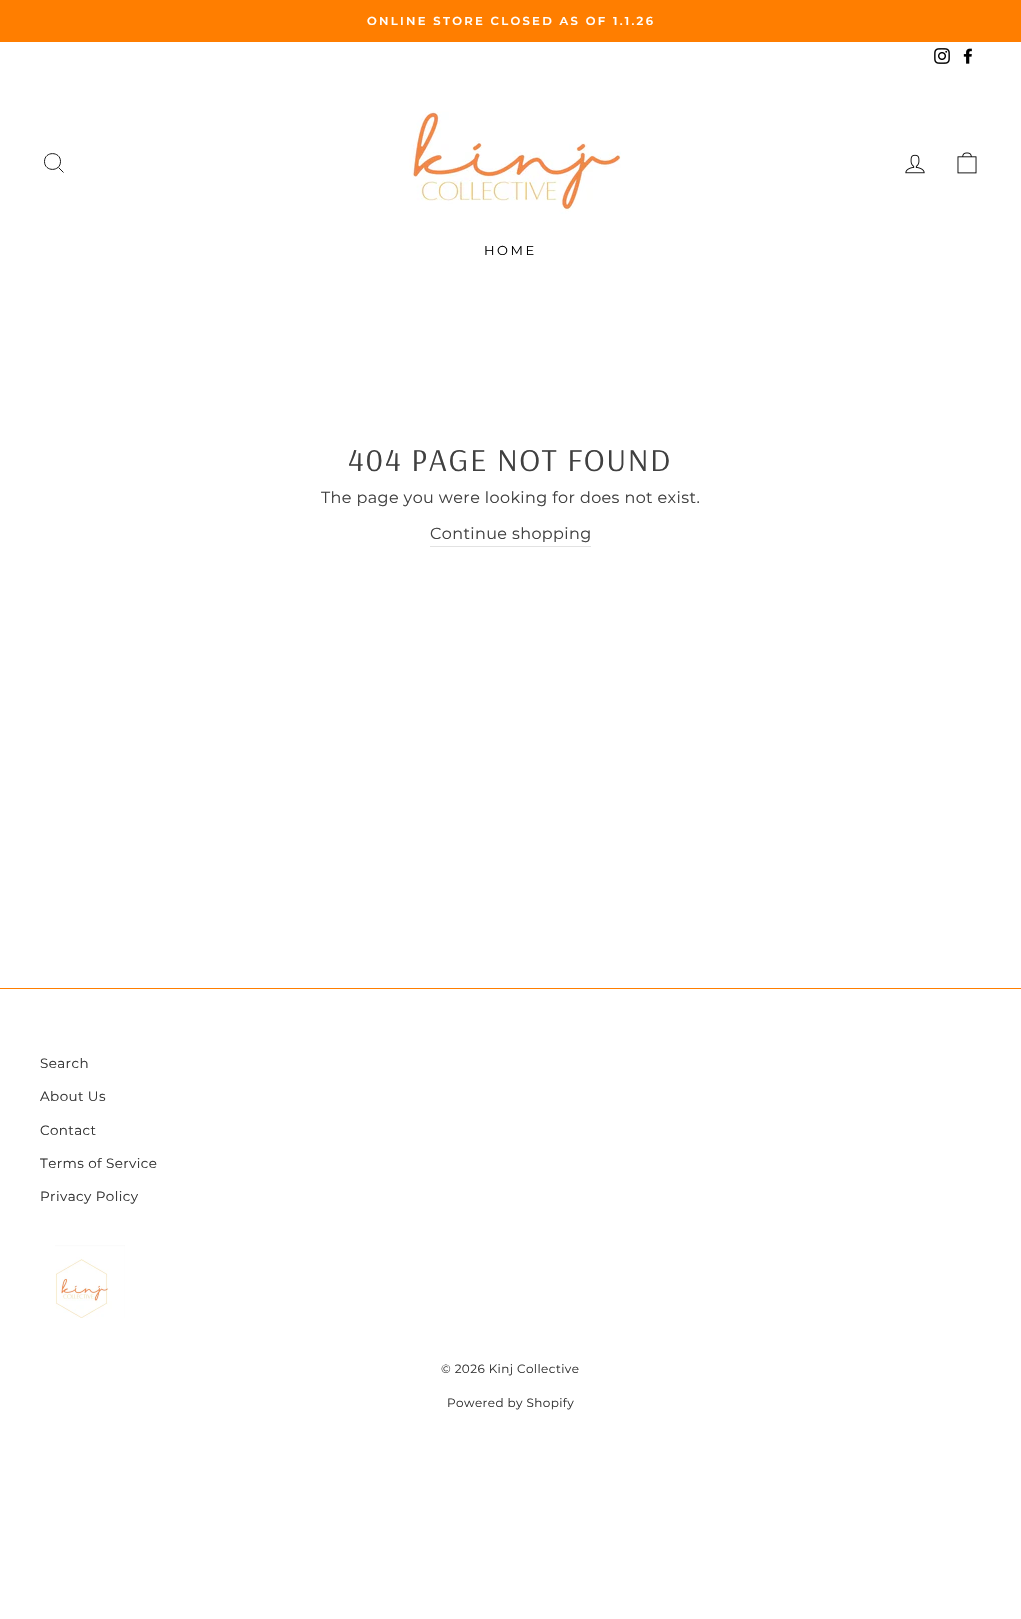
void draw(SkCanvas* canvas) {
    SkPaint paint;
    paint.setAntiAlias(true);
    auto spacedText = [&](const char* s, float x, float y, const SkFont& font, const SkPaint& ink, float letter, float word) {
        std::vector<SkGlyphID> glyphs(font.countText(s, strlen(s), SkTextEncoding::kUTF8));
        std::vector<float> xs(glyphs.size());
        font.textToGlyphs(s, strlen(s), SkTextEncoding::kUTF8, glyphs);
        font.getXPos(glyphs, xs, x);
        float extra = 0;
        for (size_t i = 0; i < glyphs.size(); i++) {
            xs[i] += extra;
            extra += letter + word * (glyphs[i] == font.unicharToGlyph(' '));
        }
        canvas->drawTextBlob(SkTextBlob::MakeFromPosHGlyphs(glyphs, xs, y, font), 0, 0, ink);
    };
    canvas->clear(0xFFFFFFFF);
    paint.setColor(0xFFFF7E00);
    canvas->drawRect(SkRect::MakeXYWH(0, 0, 1021, 42), paint);
    SkFont font1(fontMgr->matchFamilyStyle("Montserrat", SkFontStyle(600, SkFontStyle::kNormal_Width, SkFontStyle::kUpright_Slant)), 11.6f);
    font1.setSubpixel(true);
    paint.setColor(0xFFFFFFFF);
    spacedText("ONLINE STORE CLOSED AS OF 1.1.26", 367, 25, font1, paint, 2.3f, 0);
    canvas->drawImageRect(SkImages::DeferredFromEncodedData(SkData::MakeFromFileName("img1.png")), SkRect::MakeXYWH(934, 48, 16, 16), SkSamplingOptions());
    canvas->drawImageRect(SkImages::DeferredFromEncodedData(SkData::MakeFromFileName("img2.png")), SkRect::MakeXYWH(963, 48, 9, 16), SkSamplingOptions());
    paint.setStyle(SkPaint::kStroke_Style);
    paint.setStrokeWidth(0.9f);
    paint.setColor(0xFF000000);
    canvas->drawPath(SkPathBuilder().moveTo(60.5f, 161.5f).cubicTo(60.5f, 172, 44.5f, 172, 44.5f, 161.5f).cubicTo(44.5f, 151, 60.5f, 151, 60.5f, 161.5f).close().moveTo(63.5f, 172.5f).lineTo(58.5f, 167.5f).detach(), paint);
    canvas->drawImageRect(SkImages::DeferredFromEncodedData(SkData::MakeFromFileName("img3.png")), SkRect::MakeXYWH(409, 111, 212, 103), SkSamplingOptions());
    canvas->drawImageRect(SkImages::DeferredFromEncodedData(SkData::MakeFromFileName("img4.png")), SkRect::MakeXYWH(905, 154, 20, 20), SkSamplingOptions());
    canvas->drawImageRect(SkImages::DeferredFromEncodedData(SkData::MakeFromFileName("img5.png")), SkRect::MakeXYWH(957, 152, 20, 22), SkSamplingOptions());
    SkFont font2(fontMgr->matchFamilyStyle("Montserrat", SkFontStyle::Normal()), 13);
    font2.setSubpixel(true);
    paint.setStyle(SkPaint::kFill_Style);
    spacedText("HOME", 484, 255, font2, paint, 2.5f, 0);
    SkFont font3(fontMgr->matchFamilyStyle("Arsenal", SkFontStyle::Normal()), 32);
    font3.setSubpixel(true);
    paint.setColor(0xFF404040);
    spacedText("404 PAGE NOT FOUND", 348, 471, font3, paint, 1.6f, 0);
    SkFont font4(fontMgr->matchFamilyStyle("Montserrat", SkFontStyle::Normal()), 16);
    font4.setSubpixel(true);
    spacedText("The page you were looking for does not exist.", 321, 503, font4, paint, 0.4f, 0);
    paint.setColor(0xFFE2E2E2);
    canvas->drawRect(SkRect::MakeXYWH(430, 546, 161, 1), paint);
    paint.setColor(0xFF404040);
    spacedText("Continue shopping", 430, 539, font4, paint, 0.4f, 0);
    paint.setColor(0xFFFF7E00);
    canvas->drawRect(SkRect::MakeXYWH(0, 988, 1021, 1), paint);
    SkFont font5(fontMgr->matchFamilyStyle("Montserrat", SkFontStyle::Normal()), 13.5f);
    font5.setSubpixel(true);
    paint.setColor(0xFF333333);
    spacedText("Search", 40, 1068, font5, paint, 0.4f, 0);
    spacedText("About Us", 40, 1101, font5, paint, 0.4f, 0);
    spacedText("Contact", 40, 1135, font5, paint, 0.4f, 0);
    spacedText("Terms of Service", 40, 1168, font5, paint, 0.4f, 0);
    spacedText("Privacy Policy", 40, 1201, font5, paint, 0.4f, 0);
    canvas->drawImageRect(SkImages::DeferredFromEncodedData(SkData::MakeFromFileName("img6.png")), SkRect::MakeXYWH(55, 1245, 70, 73), SkSamplingOptions());
    SkFont font6(fontMgr->matchFamilyStyle("Montserrat", SkFontStyle::Normal()), 12);
    font6.setSubpixel(true);
    spacedText("© 2026 Kinj Collective", 441, 1373, font6, paint, 0.4f, 0);
    spacedText("Powered by Shopify", 447, 1407, font6, paint, 0.4f, 0);
}
